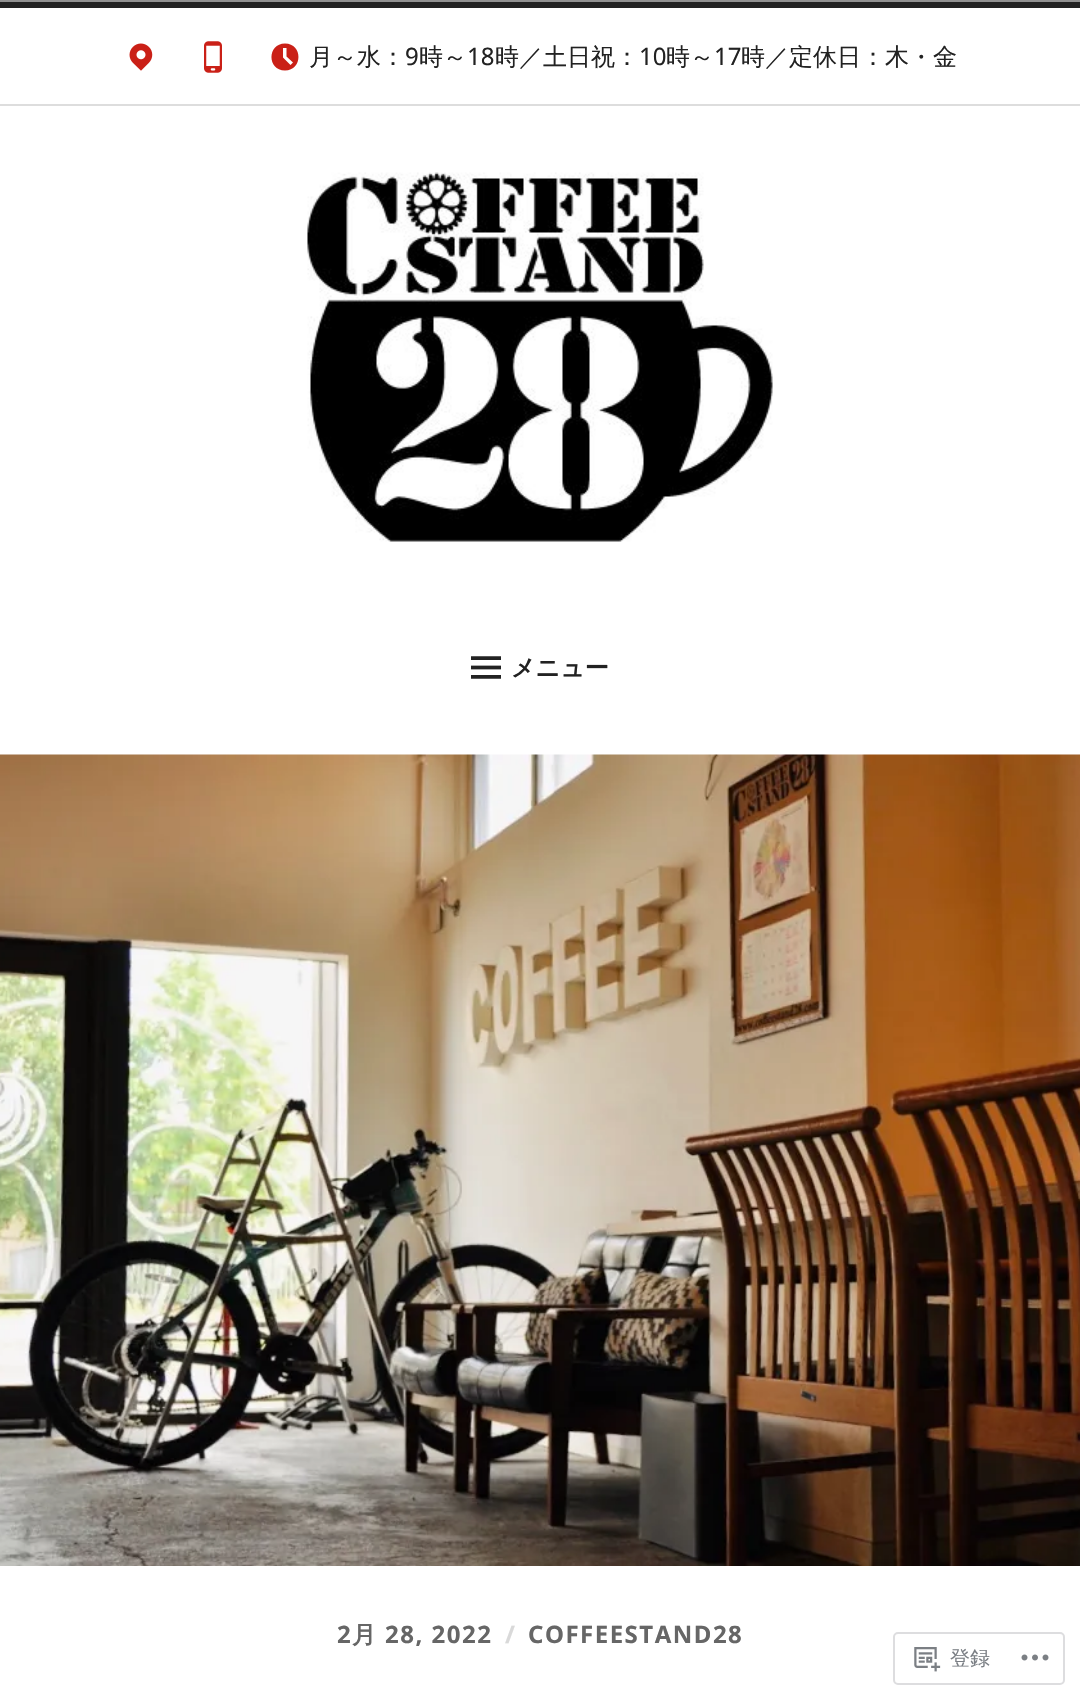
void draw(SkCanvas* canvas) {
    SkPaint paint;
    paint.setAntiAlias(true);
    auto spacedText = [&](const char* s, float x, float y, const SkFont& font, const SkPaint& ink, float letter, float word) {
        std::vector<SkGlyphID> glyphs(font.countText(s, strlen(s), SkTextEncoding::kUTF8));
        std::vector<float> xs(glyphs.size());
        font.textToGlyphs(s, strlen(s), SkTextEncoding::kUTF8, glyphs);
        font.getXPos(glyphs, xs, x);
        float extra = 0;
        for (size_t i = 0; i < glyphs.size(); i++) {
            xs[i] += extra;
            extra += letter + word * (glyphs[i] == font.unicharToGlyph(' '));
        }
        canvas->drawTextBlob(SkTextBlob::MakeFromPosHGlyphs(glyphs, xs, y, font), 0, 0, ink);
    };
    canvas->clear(0xFFFFFFFF);
    paint.setColor(0xFF222222);
    canvas->drawRect(SkRect::MakeXYWH(0, 2, 1080, 6), paint);
    paint.setColor(0xFF919191);
    canvas->drawRect(SkRect::MakeXYWH(0, 0, 1080, 2), paint);
    paint.setColor(0xFFDDDDDD);
    canvas->drawRect(SkRect::MakeXYWH(0, 104, 1080, 2), paint);
    canvas->drawImageRect(SkImages::DeferredFromEncodedData(SkData::MakeFromFileName("img1.png")), SkRect::MakeXYWH(129, 43, 24, 28), SkSamplingOptions());
    canvas->drawImageRect(SkImages::DeferredFromEncodedData(SkData::MakeFromFileName("img2.png")), SkRect::MakeXYWH(204, 41, 18, 32), SkSamplingOptions());
    paint.setColor(0xFFCA2017);
    canvas->drawPath(SkPathBuilder().moveTo(285, 43.5f).cubicTo(267, 43.5f, 267, 70.5f, 285, 70.5f).cubicTo(303, 70.5f, 303, 43.5f, 285, 43.5f).close().moveTo(290.5f, 65).lineTo(283, 57.5f).lineTo(283, 48).lineTo(286.5f, 48).lineTo(286.5f, 56.5f).lineTo(293, 62.5f).close().detach(), paint);
    SkFont font1(fontMgr->matchFamilyStyle("WenQuanYi Zen Hei", SkFontStyle(500, SkFontStyle::kNormal_Width, SkFontStyle::kUpright_Slant)), 24);
    font1.setSubpixel(true);
    paint.setColor(0xFF222222);
    canvas->drawString("月～水：", 309, 65, font1, paint);
    SkFont font2(fontMgr->matchFamilyStyle("Noto Sans", SkFontStyle::Normal()), 24);
    font2.setSubpixel(true);
    canvas->drawString("9", 405, 65, font2, paint);
    canvas->drawString("時～", 419, 65, font1, paint);
    canvas->drawString("18", 467, 65, font2, paint);
    canvas->drawString("時／土日祝：", 495, 65, font1, paint);
    canvas->drawString("10", 639, 65, font2, paint);
    canvas->drawString("時～", 666, 65, font1, paint);
    canvas->drawString("17", 714, 65, font2, paint);
    canvas->drawString("時／定休日：木・金", 741, 65, font1, paint);
    canvas->drawImageRect(SkImages::DeferredFromEncodedData(SkData::MakeFromFileName("img3.png")), SkRect::MakeXYWH(307, 172, 466, 370), SkSamplingOptions());
    canvas->drawImageRect(SkImages::DeferredFromEncodedData(SkData::MakeFromFileName("img4.png")), SkRect::MakeXYWH(471, 656, 30, 23), SkSamplingOptions());
    SkFont font3(fontMgr->matchFamilyStyle("WenQuanYi Zen Hei", SkFontStyle::Bold()), 24);
    font3.setSubpixel(true);
    canvas->drawString("メニュー", 511, 676, font3, paint);
    canvas->drawImageRect(SkImages::DeferredFromEncodedData(SkData::MakeFromFileName("img5.png")), SkRect::MakeXYWH(0, 754, 1080, 812), SkSamplingOptions());
    SkFont font4(fontMgr->matchFamilyStyle("Noto Sans", SkFontStyle::Bold()), 24);
    font4.setSubpixel(true);
    paint.setColor(0xFF666666);
    spacedText("2", 337, 1643, font4, paint, 1.5f, 0);
    spacedText("月", 352, 1643, font3, paint, 1.5f, 0);
    spacedText("28, 2022", 385, 1643, font4, paint, 1.5f, 0);
    paint.setColor(0xFFD9D9D9);
    spacedText("/", 505, 1643, font4, paint, 1.5f, 0);
    paint.setColor(0xFF666666);
    spacedText("COFFEESTAND28", 528, 1643, font4, paint, 1.5f, 0);
    paint.setStyle(SkPaint::kStroke_Style);
    paint.setStrokeWidth(2);
    paint.setColor(0xFFDDDDDF);
    canvas->drawRoundRect(SkRect::MakeXYWH(894, 1633, 170, 51), 4, 4, paint);
    canvas->drawImageRect(SkImages::DeferredFromEncodedData(SkData::MakeFromFileName("img6.png")), SkRect::MakeXYWH(914, 1647, 27, 25), SkSamplingOptions());
    SkFont font5(fontMgr->matchFamilyStyle("WenQuanYi Zen Hei", SkFontStyle(500, SkFontStyle::kNormal_Width, SkFontStyle::kUpright_Slant)), 20);
    font5.setSubpixel(true);
    paint.setStyle(SkPaint::kFill_Style);
    paint.setColor(0xFF7B7F85);
    canvas->drawString("登録", 950, 1665, font5, paint);
    canvas->drawImageRect(SkImages::DeferredFromEncodedData(SkData::MakeFromFileName("img7.png")), SkRect::MakeXYWH(1021, 1654, 28, 7), SkSamplingOptions());
}
